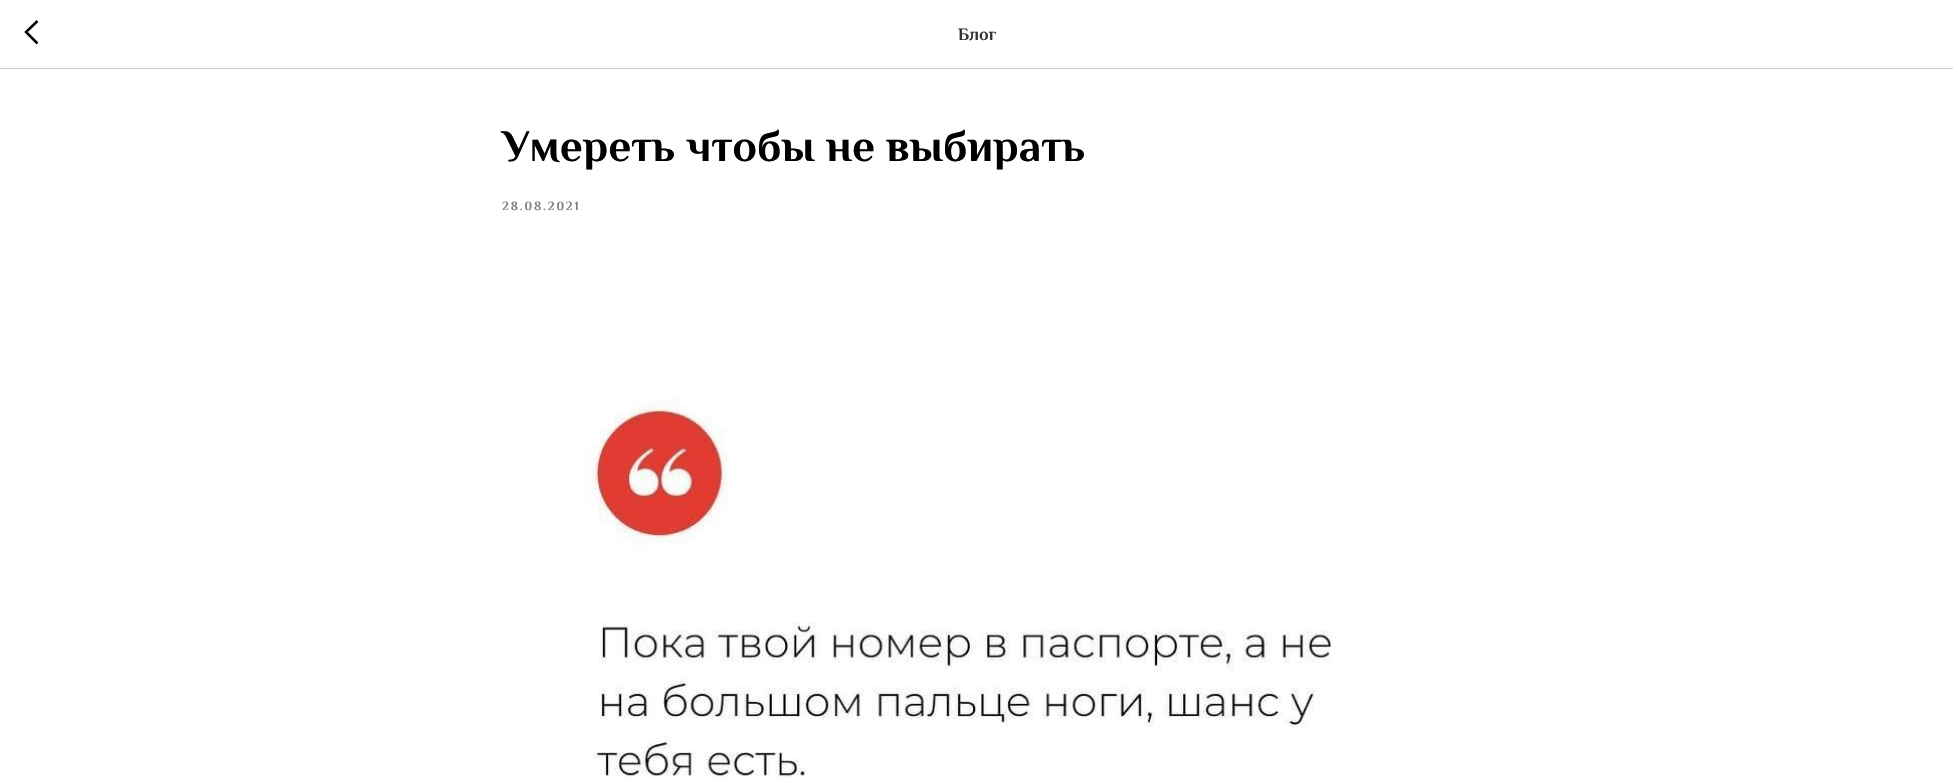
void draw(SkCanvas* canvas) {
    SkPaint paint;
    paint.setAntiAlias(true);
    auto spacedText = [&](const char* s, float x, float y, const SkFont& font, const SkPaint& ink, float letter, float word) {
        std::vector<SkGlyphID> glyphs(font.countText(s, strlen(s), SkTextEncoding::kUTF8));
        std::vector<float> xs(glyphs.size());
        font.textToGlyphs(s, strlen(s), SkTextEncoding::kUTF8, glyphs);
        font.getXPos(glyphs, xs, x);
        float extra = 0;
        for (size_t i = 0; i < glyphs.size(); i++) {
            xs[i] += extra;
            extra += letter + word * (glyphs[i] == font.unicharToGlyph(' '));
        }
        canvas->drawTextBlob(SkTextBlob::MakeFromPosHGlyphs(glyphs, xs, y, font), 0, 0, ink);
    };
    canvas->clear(0xFFFFFFFF);
    paint.setColor(0xFFCCCCCC);
    canvas->drawRect(SkRect::MakeXYWH(0, 68, 1953, 1), paint);
    paint.setStyle(SkPaint::kStroke_Style);
    paint.setStrokeWidth(2.5f);
    paint.setColor(0xFF000000);
    canvas->drawPath(SkPathBuilder().moveTo(37.5f, 43.5f).lineTo(26, 32).lineTo(37.5f, 21).detach(), paint);
    SkFont font1(fontMgr->matchFamilyStyle("Philosopher", SkFontStyle::Bold()), 17.5f);
    font1.setSubpixel(true);
    paint.setStyle(SkPaint::kFill_Style);
    paint.setColor(0xFF333333);
    canvas->drawString("Блог", 958, 40, font1, paint);
    SkFont font2(fontMgr->matchFamilyStyle("Philosopher", SkFontStyle::Bold()), 45);
    font2.setSubpixel(true);
    paint.setColor(0xFF000000);
    canvas->drawString("Умереть чтобы не выбирать", 502, 161, font2, paint);
    SkFont font3(fontMgr->matchFamilyStyle("Philosopher", SkFontStyle::Bold()), 12.5f);
    font3.setSubpixel(true);
    paint.setColor(0xFF808080);
    spacedText("28.08.2021", 502, 210, font3, paint, 1.9f, 0);
    canvas->drawImageRect(SkImages::DeferredFromEncodedData(SkData::MakeFromFileName("img1.png")), SkRect::MakeXYWH(583, 397, 748, 382), SkSamplingOptions());
}
